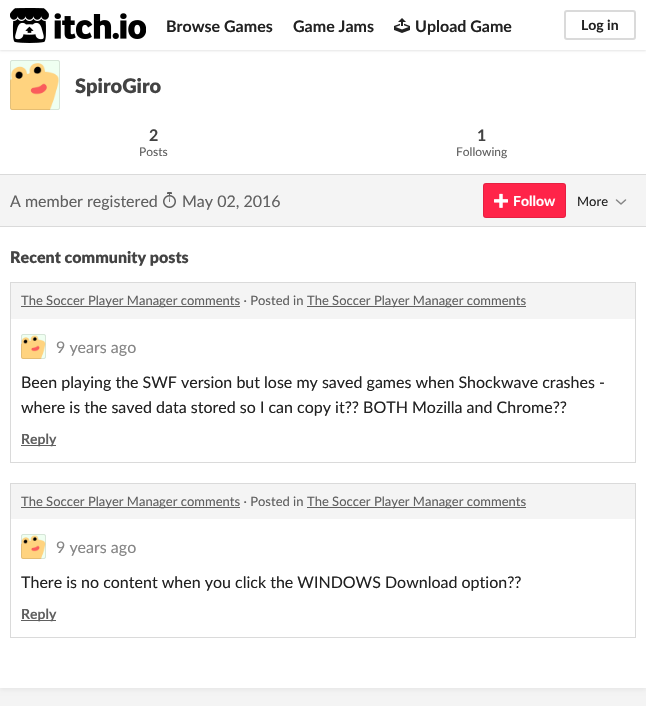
void draw(SkCanvas* canvas) {
    SkPaint paint;
    paint.setAntiAlias(true);
    canvas->clear(0xFFF4F4F4);
    paint.setColor(0x0D000000);
    paint.setMaskFilter(SkMaskFilter::MakeBlur(kNormal_SkBlurStyle, 2));
    canvas->drawRect(SkRect::MakeXYWH(0, 52, 646, 638), paint);
    paint.setMaskFilter(nullptr);
    paint.setColor(0xFFFFFFFF);
    canvas->drawRect(SkRect::MakeXYWH(0, 50, 646, 638), paint);
    paint.setColor(0x1A000000);
    paint.setMaskFilter(SkMaskFilter::MakeBlur(kNormal_SkBlurStyle, 1));
    canvas->drawRect(SkRect::MakeXYWH(0, 1, 646, 50), paint);
    paint.setMaskFilter(nullptr);
    paint.setColor(0xFFFFFFFF);
    canvas->drawRect(SkRect::MakeXYWH(0, 0, 646, 50), paint);
    canvas->drawImageRect(SkImages::DeferredFromEncodedData(SkData::MakeFromFileName("img1.png")), SkRect::MakeXYWH(10, 8, 136, 35), SkSamplingOptions());
    SkFont font1(fontMgr->matchFamilyStyle("Lato", SkFontStyle::Bold()), 16);
    font1.setSubpixel(true);
    paint.setColor(0xFF222222);
    canvas->drawString("Browse Games", 166, 32, font1, paint);
    canvas->drawString("Game Jams", 293, 32, font1, paint);
    canvas->drawImageRect(SkImages::DeferredFromEncodedData(SkData::MakeFromFileName("img2.png")), SkRect::MakeXYWH(394, 18, 16, 15), SkSamplingOptions());
    canvas->drawString("Upload Game", 415, 32, font1, paint);
    paint.setStyle(SkPaint::kStroke_Style);
    paint.setStrokeWidth(2);
    paint.setColor(0xFFDADADA);
    canvas->drawRoundRect(SkRect::MakeXYWH(565, 11, 70, 28), 2, 2, paint);
    SkFont font2(fontMgr->matchFamilyStyle("Lato", SkFontStyle::Bold()), 14);
    font2.setSubpixel(true);
    paint.setStyle(SkPaint::kFill_Style);
    paint.setColor(0xFF222222);
    canvas->drawString("Log in", 581, 30, font2, paint);
    paint.setColor(0xFFDADADA);
    canvas->drawRect(SkRect::MakeXYWH(0, 174, 646, 1), paint);
    canvas->drawImageRect(SkImages::DeferredFromEncodedData(SkData::MakeFromFileName("img3.png")), SkRect::MakeXYWH(10, 60, 50, 50), SkSamplingOptions());
    paint.setStyle(SkPaint::kStroke_Style);
    paint.setStrokeWidth(1);
    paint.setColor(0x1A000000);
    canvas->drawRoundRect(SkRect::MakeXYWH(10.5f, 60.5f, 49, 49), 1.5f, 1.5f, paint);
    SkFont font3(fontMgr->matchFamilyStyle("Lato", SkFontStyle(900, SkFontStyle::kNormal_Width, SkFontStyle::kUpright_Slant)), 20);
    font3.setSubpixel(true);
    paint.setStyle(SkPaint::kFill_Style);
    paint.setColor(0xFF434343);
    canvas->drawString("SpiroGiro", 75, 93, font3, paint);
    canvas->drawString("2", 149, 141, font1, paint);
    SkFont font4(fontMgr->matchFamilyStyle("Lato", SkFontStyle::Normal()), 12);
    font4.setSubpixel(true);
    paint.setColor(0xFF606060);
    canvas->drawString("Posts", 139, 156, font4, paint);
    paint.setColor(0xFF434343);
    canvas->drawString("1", 477, 141, font1, paint);
    paint.setColor(0xFF606060);
    canvas->drawString("Following", 456, 156, font4, paint);
    paint.setColor(0xFFF4F4F4);
    canvas->drawRect(SkRect::MakeXYWH(0, 175, 646, 51), paint);
    paint.setColor(0xFFDADADA);
    canvas->drawRect(SkRect::MakeXYWH(0, 226, 646, 1), paint);
    SkFont font5(fontMgr->matchFamilyStyle("Lato", SkFontStyle::Normal()), 16);
    font5.setSubpixel(true);
    paint.setColor(0xFF606060);
    canvas->drawString("A member registered", 10, 207, font5, paint);
    canvas->drawImageRect(SkImages::DeferredFromEncodedData(SkData::MakeFromFileName("img4.png")), SkRect::MakeXYWH(163, 192, 13, 16), SkSamplingOptions());
    canvas->drawString("May 02, 2016", 182, 207, font5, paint);
    paint.setColor(0xFFFF2449);
    canvas->drawRoundRect(SkRect::MakeXYWH(483, 183, 83, 35), 3, 3, paint);
    paint.setStyle(SkPaint::kStroke_Style);
    paint.setColor(0x1A000000);
    canvas->drawRoundRect(SkRect::MakeXYWH(483.5f, 183.5f, 82, 34), 2.5f, 2.5f, paint);
    canvas->drawImageRect(SkImages::DeferredFromEncodedData(SkData::MakeFromFileName("img5.png")), SkRect::MakeXYWH(494, 193, 14, 15), SkSamplingOptions());
    paint.setStyle(SkPaint::kFill_Style);
    paint.setColor(0xFFFFFFFF);
    canvas->drawString("Follow", 513, 206, font2, paint);
    SkFont font6(fontMgr->matchFamilyStyle("Lato", SkFontStyle::Normal()), 13);
    font6.setSubpixel(true);
    paint.setColor(0xFF222222);
    canvas->drawString("More", 577, 206, font6, paint);
    paint.setStyle(SkPaint::kStroke_Style);
    paint.setStrokeWidth(1.5f);
    paint.setStrokeCap(SkPaint::kRound_Cap);
    paint.setStrokeJoin(SkPaint::kRound_Join);
    paint.setColor(0xFF858585);
    canvas->drawPath(SkPathBuilder().moveTo(616.5f, 200).lineTo(621, 204).lineTo(625.5f, 200).detach(), paint);
    SkFont font7(fontMgr->matchFamilyStyle("Lato", SkFontStyle(900, SkFontStyle::kNormal_Width, SkFontStyle::kUpright_Slant)), 16);
    font7.setSubpixel(true);
    paint.setStyle(SkPaint::kFill_Style);
    paint.setColor(0xFF434343);
    canvas->drawString("Recent community posts", 10, 263, font7, paint);
    paint.setStyle(SkPaint::kStroke_Style);
    paint.setStrokeWidth(1);
    paint.setStrokeCap(SkPaint::kButt_Cap);
    paint.setStrokeJoin(SkPaint::kMiter_Join);
    paint.setColor(0xFFDADADA);
    canvas->drawRect(SkRect::MakeXYWH(10.5f, 282.5f, 625, 180), paint);
    paint.setStyle(SkPaint::kFill_Style);
    paint.setColor(0xFFF4F4F4);
    canvas->drawRect(SkRect::MakeXYWH(11, 283, 624, 36), paint);
    paint.setColor(0xFF606060);
    canvas->drawRect(SkRect::MakeXYWH(21, 306, 219, 1), paint);
    canvas->drawString("The Soccer Player Manager comments · Posted in", 21, 305, font6, paint);
    canvas->drawRect(SkRect::MakeXYWH(307, 306, 219, 1), paint);
    canvas->drawString("The Soccer Player Manager comments", 307, 305, font6, paint);
    canvas->drawImageRect(SkImages::DeferredFromEncodedData(SkData::MakeFromFileName("img6.png")), SkRect::MakeXYWH(21, 334, 25, 25), SkSamplingOptions());
    paint.setStyle(SkPaint::kStroke_Style);
    paint.setColor(0x1A000000);
    canvas->drawRoundRect(SkRect::MakeXYWH(21.5f, 334.5f, 24, 24), 1.5f, 1.5f, paint);
    paint.setStyle(SkPaint::kFill_Style);
    paint.setColor(0xFF858585);
    canvas->drawString("9 years ago", 56, 353, font5, paint);
    paint.setColor(0xFF222222);
    canvas->drawString("Been playing the SWF version but lose my saved games when Shockwave crashes -", 21, 388, font5, paint);
    canvas->drawString("where is the saved data stored so I can copy it?\077 BOTH Mozilla and Chrome?\077", 21, 413, font5, paint);
    paint.setColor(0xFF606060);
    canvas->drawRect(SkRect::MakeXYWH(21, 445, 35, 1), paint);
    canvas->drawString("Reply", 21, 444, font2, paint);
    paint.setStyle(SkPaint::kStroke_Style);
    paint.setColor(0xFFDADADA);
    canvas->drawRect(SkRect::MakeXYWH(10.5f, 483.5f, 625, 154), paint);
    paint.setStyle(SkPaint::kFill_Style);
    paint.setColor(0xFFF4F4F4);
    canvas->drawRect(SkRect::MakeXYWH(11, 484, 624, 35), paint);
    paint.setColor(0xFF606060);
    canvas->drawRect(SkRect::MakeXYWH(21, 507, 219, 1), paint);
    canvas->drawString("The Soccer Player Manager comments · Posted in", 21, 506, font6, paint);
    canvas->drawRect(SkRect::MakeXYWH(307, 507, 219, 1), paint);
    canvas->drawString("The Soccer Player Manager comments", 307, 506, font6, paint);
    canvas->drawImageRect(SkImages::DeferredFromEncodedData(SkData::MakeFromFileName("img7.png")), SkRect::MakeXYWH(21, 534, 25, 25), SkSamplingOptions());
    paint.setStyle(SkPaint::kStroke_Style);
    paint.setColor(0x1A000000);
    canvas->drawRoundRect(SkRect::MakeXYWH(21.5f, 534.5f, 24, 24), 1.5f, 1.5f, paint);
    paint.setStyle(SkPaint::kFill_Style);
    paint.setColor(0xFF858585);
    canvas->drawString("9 years ago", 56, 553, font5, paint);
    paint.setColor(0xFF222222);
    canvas->drawString("There is no content when you click the WINDOWS Download option?\077", 21, 588, font5, paint);
    paint.setColor(0xFF606060);
    canvas->drawRect(SkRect::MakeXYWH(21, 620, 35, 1), paint);
    canvas->drawString("Reply", 21, 619, font2, paint);
}
